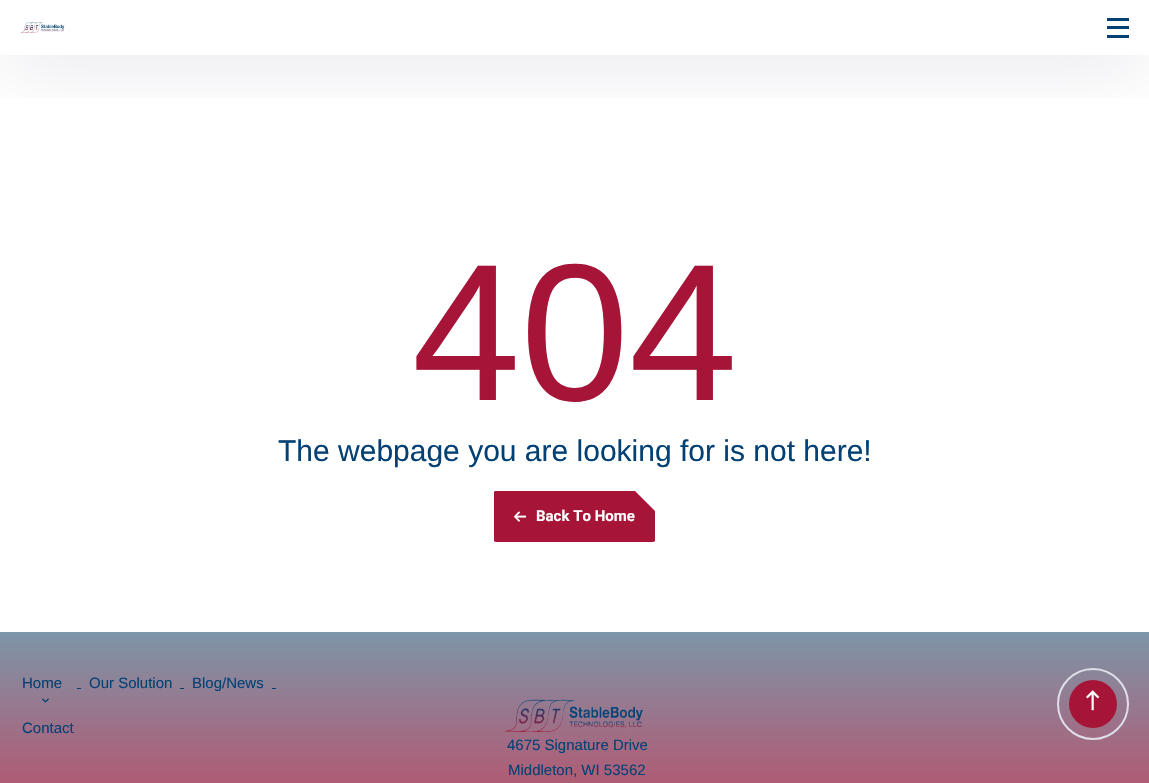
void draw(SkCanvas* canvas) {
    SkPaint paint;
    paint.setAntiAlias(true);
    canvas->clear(0xFFFFFFFF);
    canvas->save();
    canvas->clipRect(SkRect::MakeXYWH(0, 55, 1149, 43));
    paint.setColor(0x1F0D0E43);
    paint.setMaskFilter(SkMaskFilter::MakeBlur(kNormal_SkBlurStyle, 41.5f));
    canvas->drawRect(SkRect::MakeXYWH(0, 5, 1149, 55), paint);
    paint.setMaskFilter(nullptr);
    canvas->restore();
    canvas->drawImageRect(SkImages::DeferredFromEncodedData(SkData::MakeFromFileName("img1.png")), SkRect::MakeXYWH(20, 22, 45, 11), SkSamplingOptions());
    paint.setColor(0xFF034175);
    canvas->drawRect(SkRect::MakeXYWH(1107, 18, 22, 3), paint);
    canvas->drawRect(SkRect::MakeXYWH(1107, 26, 22, 3), paint);
    canvas->drawRect(SkRect::MakeXYWH(1107, 35, 22, 3), paint);
    SkFont font1(fontMgr->matchFamilyStyle("Liberation Sans", SkFontStyle::Normal()), 195);
    font1.setSubpixel(true);
    paint.setColor(0xFFA61438);
    canvas->drawString("404", 412, 400, font1, paint);
    SkFont font2(fontMgr->matchFamilyStyle("Liberation Sans", SkFontStyle::Normal()), 30);
    font2.setSubpixel(true);
    paint.setColor(0xFF034175);
    canvas->drawString("The webpage you are looking for is not here!", 278, 461, font2, paint);
    paint.setColor(0xFFA61438);
    canvas->drawPath(SkPathBuilder().moveTo(635, 491).lineTo(655, 511).lineTo(655, 541).cubicTo(655, 541, 654, 542, 653, 542).lineTo(496, 542).cubicTo(495, 542, 494, 541, 494, 541).lineTo(494, 492).lineTo(495, 491).close().detach(), paint);
    canvas->drawImageRect(SkImages::DeferredFromEncodedData(SkData::MakeFromFileName("img2.png")), SkRect::MakeXYWH(514, 511, 13, 11), SkSamplingOptions());
    SkFont font3(fontMgr->matchFamilyStyle("Roboto", SkFontStyle::Bold()), 15);
    font3.setSubpixel(true);
    paint.setColor(0xFFFFFFFF);
    canvas->drawString("Back To Home", 536, 521, font3, paint);
    {
        const SkColor colors[] = {0xFF7D95A8, 0xFFBC4D68};
        const float stops[] = {0, 0.87f};
        const SkPoint ends[] = {{575, 632}, {575, 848}};
        paint.setShader(SkGradientShader::MakeLinear(ends, colors, stops, 2, SkTileMode::kClamp));
        paint.setAlpha(255);
    }
    canvas->drawRect(SkRect::MakeXYWH(0, 632, 1149, 151), paint);
    SkFont font4(fontMgr->matchFamilyStyle("Liberation Sans", SkFontStyle::Normal()), 15);
    font4.setSubpixel(true);
    paint.setShader(nullptr);
    paint.setColor(0xFF034175);
    canvas->drawString("Home", 22, 688, font4, paint);
    canvas->drawImageRect(SkImages::DeferredFromEncodedData(SkData::MakeFromFileName("img3.png")), SkRect::MakeXYWH(42, 698, 7, 5), SkSamplingOptions());
    canvas->drawRect(SkRect::MakeXYWH(77, 688, 4, 1), paint);
    canvas->drawString("Our Solution", 89, 688, font4, paint);
    canvas->drawRect(SkRect::MakeXYWH(180, 688, 4, 1), paint);
    canvas->drawString("Blog/News", 192, 688, font4, paint);
    canvas->drawRect(SkRect::MakeXYWH(272, 688, 4, 1), paint);
    canvas->drawString("Contact", 22, 733, font4, paint);
    paint.setStyle(SkPaint::kStroke_Style);
    paint.setStrokeWidth(2);
    paint.setColor(0xFFDFDFEA);
    canvas->drawCircle(1093, 704, 35, paint);
    paint.setStyle(SkPaint::kFill_Style);
    paint.setColor(0xFFA61438);
    canvas->drawCircle(1093, 704, 24, paint);
    canvas->drawImageRect(SkImages::DeferredFromEncodedData(SkData::MakeFromFileName("img4.png")), SkRect::MakeXYWH(1086, 690, 14, 21), SkSamplingOptions());
    canvas->drawImageRect(SkImages::DeferredFromEncodedData(SkData::MakeFromFileName("img5.png")), SkRect::MakeXYWH(504, 699, 139, 33), SkSamplingOptions());
    paint.setColor(0xFF034175);
    canvas->drawString("4675 Signature Drive", 507, 750, font4, paint);
    canvas->drawString("Middleton, WI 53562", 508, 775, font4, paint);
}
